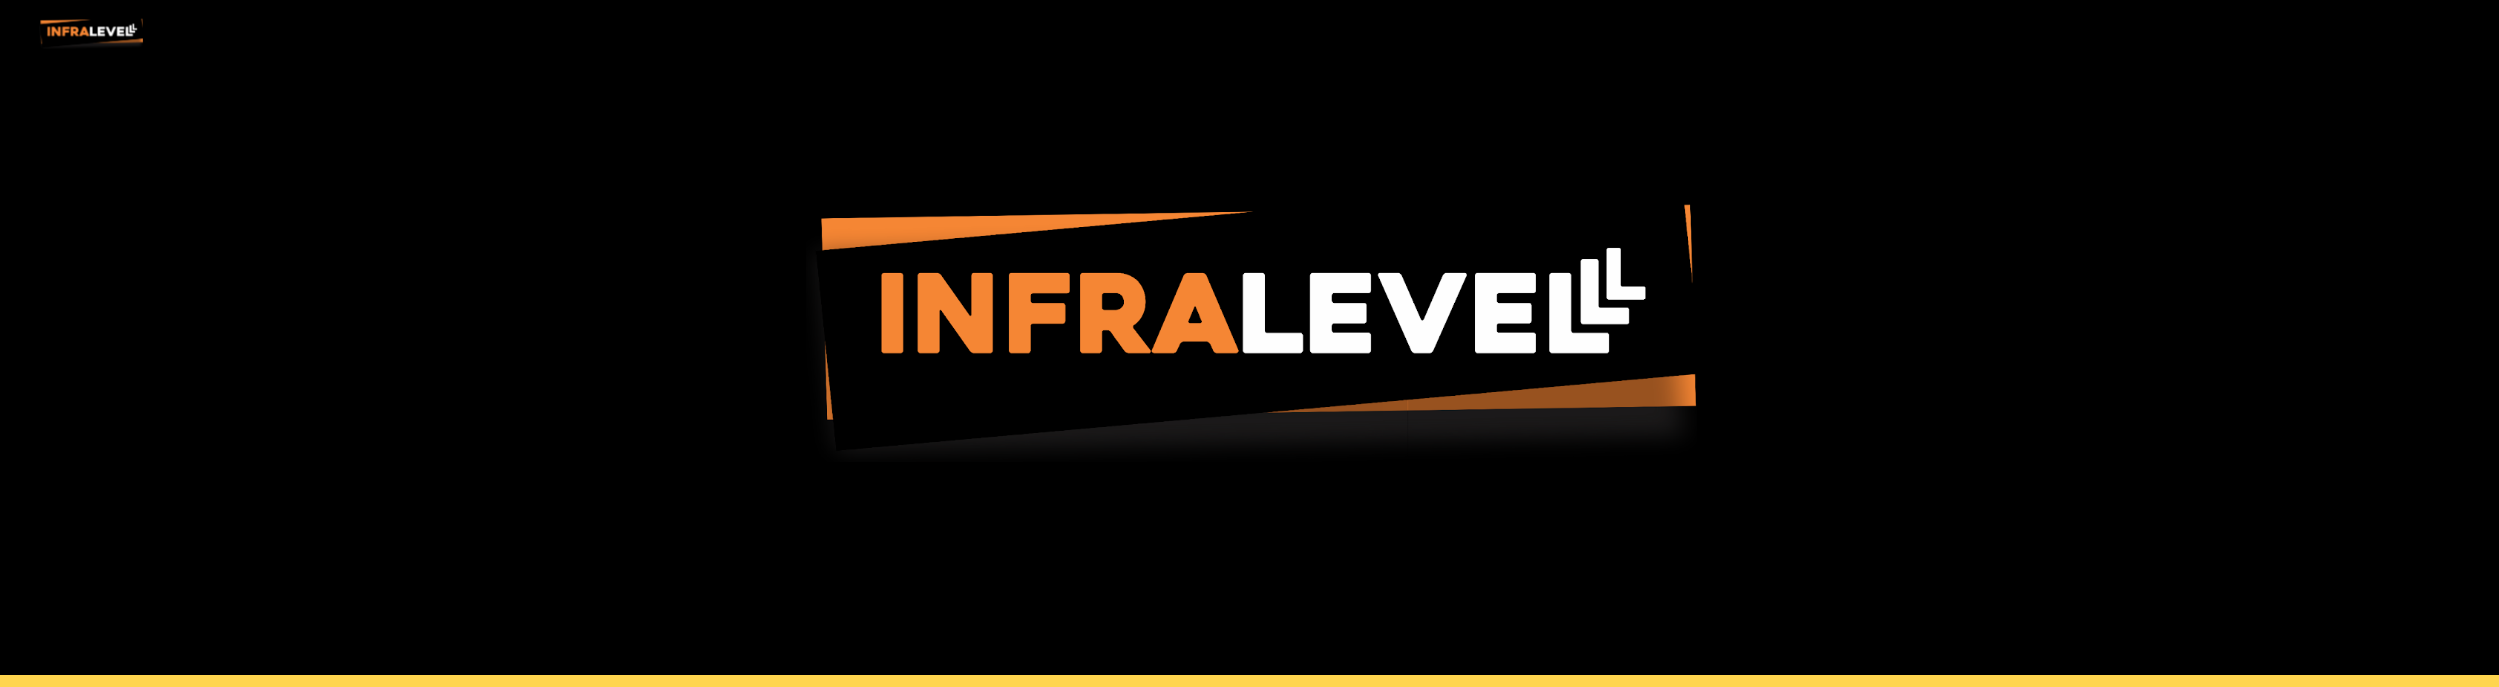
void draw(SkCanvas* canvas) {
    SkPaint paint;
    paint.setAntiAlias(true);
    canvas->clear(0xFF000000);
    canvas->drawImageRect(SkImages::DeferredFromEncodedData(SkData::MakeFromFileName("img1.png")), SkRect::MakeXYWH(39, 18, 105, 31), SkSamplingOptions());
    canvas->drawImageRect(SkImages::DeferredFromEncodedData(SkData::MakeFromFileName("img2.png")), SkRect::MakeXYWH(806, 204, 891, 258), SkSamplingOptions());
    paint.setColor(0xFFFFD54F);
    canvas->drawRect(SkRect::MakeXYWH(0, 675, 2499, 12), paint);
}
